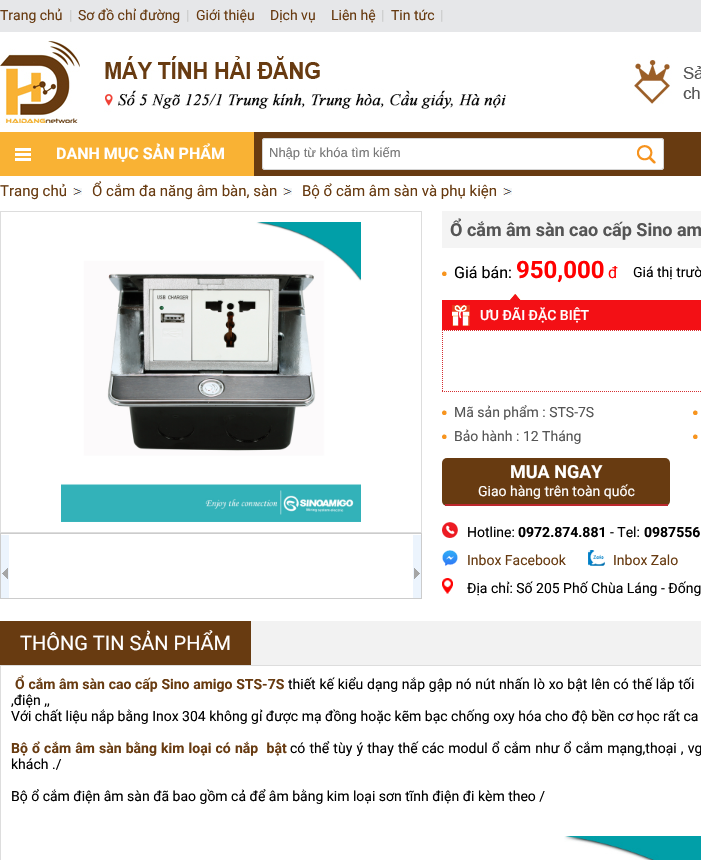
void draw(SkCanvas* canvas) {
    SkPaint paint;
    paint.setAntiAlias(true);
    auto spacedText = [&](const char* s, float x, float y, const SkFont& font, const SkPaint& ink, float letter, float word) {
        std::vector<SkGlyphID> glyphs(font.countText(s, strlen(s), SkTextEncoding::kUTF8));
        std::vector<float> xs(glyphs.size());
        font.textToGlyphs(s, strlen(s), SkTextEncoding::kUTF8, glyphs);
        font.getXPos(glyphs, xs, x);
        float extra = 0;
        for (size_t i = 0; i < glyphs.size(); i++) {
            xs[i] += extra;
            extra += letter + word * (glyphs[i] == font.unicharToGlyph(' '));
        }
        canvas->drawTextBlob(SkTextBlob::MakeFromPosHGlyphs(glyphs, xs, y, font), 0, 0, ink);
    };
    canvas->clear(0xFFFFFFFF);
    paint.setColor(0xFFE6E7E9);
    canvas->drawRect(SkRect::MakeXYWH(0, 0, 701, 32), paint);
    SkFont font1(fontMgr->matchFamilyStyle("Roboto", SkFontStyle::Normal()), 14);
    font1.setSubpixel(true);
    paint.setColor(0xFF683B11);
    canvas->drawString("Trang chủ", 0, 20, font1, paint);
    paint.setColor(0xFFCCCCCC);
    canvas->drawString("|", 69, 20, font1, paint);
    paint.setColor(0xFF683B11);
    canvas->drawString("Sơ đồ chỉ đường", 78, 20, font1, paint);
    paint.setColor(0xFFCCCCCC);
    canvas->drawString("|", 186, 20, font1, paint);
    paint.setColor(0xFF683B11);
    canvas->drawString("Giới thiệu", 196, 20, font1, paint);
    canvas->drawString("Dịch vụ", 270, 20, font1, paint);
    canvas->drawString("Liên hệ", 331, 20, font1, paint);
    paint.setColor(0xFFCCCCCC);
    canvas->drawString("|", 381, 20, font1, paint);
    paint.setColor(0xFF683B11);
    canvas->drawString("Tin tức", 391, 20, font1, paint);
    paint.setColor(0xFFCCCCCC);
    canvas->drawString("|", 440, 20, font1, paint);
    canvas->drawImageRect(SkImages::DeferredFromEncodedData(SkData::MakeFromFileName("img1.png")), SkRect::MakeXYWH(0, 41, 701, 87), SkSamplingOptions());
    paint.setColor(0xFF683B11);
    canvas->drawRect(SkRect::MakeXYWH(254, 132, 447, 44), paint);
    paint.setColor(0xFFF9B234);
    canvas->drawRect(SkRect::MakeXYWH(0, 132, 254, 44), paint);
    canvas->drawImageRect(SkImages::DeferredFromEncodedData(SkData::MakeFromFileName("img2.png")), SkRect::MakeXYWH(15, 148, 16, 13), SkSamplingOptions());
    SkFont font2(fontMgr->matchFamilyStyle("Roboto", SkFontStyle::Bold()), 16);
    font2.setSubpixel(true);
    paint.setColor(0xFFFFFFFF);
    canvas->drawString("DANH MỤC SẢN PHẨM", 56, 159, font2, paint);
    canvas->drawRoundRect(SkRect::MakeXYWH(262, 138, 402, 32), 3, 3, paint);
    canvas->drawImageRect(SkImages::DeferredFromEncodedData(SkData::MakeFromFileName("img3.png")), SkRect::MakeXYWH(637, 145, 19, 19), SkSamplingOptions());
    paint.setStyle(SkPaint::kStroke_Style);
    paint.setStrokeWidth(1);
    paint.setColor(0xFFD4D4D4);
    canvas->drawRoundRect(SkRect::MakeXYWH(262.5f, 138.5f, 401, 31), 2.5f, 2.5f, paint);
    SkFont font3(fontMgr->matchFamilyStyle("Liberation Sans", SkFontStyle::Normal()), 13);
    font3.setSubpixel(true);
    paint.setStyle(SkPaint::kFill_Style);
    paint.setColor(0xFF757575);
    canvas->drawString("Nhập từ khóa tìm kiếm", 269, 157, font3, paint);
    canvas->drawImageRect(SkImages::DeferredFromEncodedData(SkData::MakeFromFileName("img4.png")), SkRect::MakeXYWH(73, 188, 9, 7), SkSamplingOptions());
    SkFont font4(fontMgr->matchFamilyStyle("Roboto", SkFontStyle::Normal()), 15);
    font4.setSubpixel(true);
    paint.setColor(0xFF683B11);
    canvas->drawString("Trang chủ", 0, 196, font4, paint);
    canvas->drawImageRect(SkImages::DeferredFromEncodedData(SkData::MakeFromFileName("img4.png")), SkRect::MakeXYWH(283, 188, 9, 7), SkSamplingOptions());
    canvas->drawString("Ổ cắm đa năng âm bàn, sàn", 92, 196, font4, paint);
    canvas->drawImageRect(SkImages::DeferredFromEncodedData(SkData::MakeFromFileName("img4.png")), SkRect::MakeXYWH(503, 188, 9, 7), SkSamplingOptions());
    canvas->drawString("Bộ ổ căm âm sàn và phụ kiện", 302, 196, font4, paint);
    paint.setStyle(SkPaint::kStroke_Style);
    paint.setColor(0xFFDDDDDD);
    canvas->drawRect(SkRect::MakeXYWH(0.5f, 211.5f, 421, 321), paint);
    canvas->drawImageRect(SkImages::DeferredFromEncodedData(SkData::MakeFromFileName("img5.png")), SkRect::MakeXYWH(61, 222, 300, 300), SkSamplingOptions());
    paint.setColor(0xFFCCCCCC);
    canvas->drawRect(SkRect::MakeXYWH(0.5f, 533.5f, 421, 65), paint);
    paint.setStyle(SkPaint::kFill_Style);
    paint.setColor(0xFFECF4FD);
    canvas->drawRect(SkRect::MakeXYWH(1, 535, 8, 63), paint);
    canvas->drawImageRect(SkImages::DeferredFromEncodedData(SkData::MakeFromFileName("img6.png")), SkRect::MakeXYWH(2, 568, 6, 11), SkSamplingOptions());
    canvas->drawRect(SkRect::MakeXYWH(413, 535, 8, 63), paint);
    canvas->drawImageRect(SkImages::DeferredFromEncodedData(SkData::MakeFromFileName("img7.png")), SkRect::MakeXYWH(414, 568, 6, 11), SkSamplingOptions());
    paint.setColor(0xFFF4F4F4);
    canvas->drawRect(SkRect::MakeXYWH(442, 211, 259, 37), paint);
    SkFont font5(fontMgr->matchFamilyStyle("Roboto", SkFontStyle::Bold()), 18);
    font5.setSubpixel(true);
    paint.setColor(0xFF555555);
    canvas->drawString("Ổ cắm âm sàn cao cấp Sino am", 450, 236, font5, paint);
    canvas->drawImageRect(SkImages::DeferredFromEncodedData(SkData::MakeFromFileName("img8.png")), SkRect::MakeXYWH(442, 271, 5, 5), SkSamplingOptions());
    SkFont font6(fontMgr->matchFamilyStyle("Roboto", SkFontStyle::Normal()), 16);
    font6.setSubpixel(true);
    paint.setColor(0xFF000000);
    canvas->drawString("Giá bán:", 454, 278, font6, paint);
    SkFont font7(fontMgr->matchFamilyStyle("Roboto", SkFontStyle::Bold()), 24);
    font7.setSubpixel(true);
    paint.setColor(0xFFFF0000);
    canvas->drawString("950,000", 516, 278, font7, paint);
    canvas->drawString("đ", 608, 278, font6, paint);
    paint.setColor(0xFF000000);
    canvas->drawString("Giá thị trườ", 633, 277, font1, paint);
    canvas->drawImageRect(SkImages::DeferredFromEncodedData(SkData::MakeFromFileName("img9.png")), SkRect::MakeXYWH(510, 294, 11, 6), SkSamplingOptions());
    paint.setColor(0xFFF31015);
    canvas->drawRect(SkRect::MakeXYWH(442, 300, 259, 30), paint);
    canvas->drawImageRect(SkImages::DeferredFromEncodedData(SkData::MakeFromFileName("img10.png")), SkRect::MakeXYWH(452, 305, 18, 21), SkSamplingOptions());
    SkFont font8(fontMgr->matchFamilyStyle("Roboto", SkFontStyle(500, SkFontStyle::kNormal_Width, SkFontStyle::kUpright_Slant)), 14);
    font8.setSubpixel(true);
    paint.setColor(0xFFFFFFFF);
    canvas->drawString("ƯU ĐÃI ĐẶC BIỆT", 480, 320, font8, paint);
    paint.setStyle(SkPaint::kStroke_Style);
    paint.setColor(0xFFD52F32);
    paint.setPathEffect(SkDashPathEffect::Make({{1, 1}}, 0));
    canvas->drawPath(SkPathBuilder().moveTo(442, 330.5f).lineTo(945, 330.5f).detach(), paint);
    paint.setPathEffect(nullptr);
    paint.setPathEffect(SkDashPathEffect::Make({{1, 1}}, 0));
    canvas->drawPath(SkPathBuilder().moveTo(442, 391.5f).lineTo(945, 391.5f).detach(), paint);
    paint.setPathEffect(nullptr);
    paint.setPathEffect(SkDashPathEffect::Make({{1, 1}}, 0));
    canvas->drawPath(SkPathBuilder().moveTo(442.5f, 330).lineTo(442.5f, 392).detach(), paint);
    paint.setPathEffect(nullptr);
    canvas->drawImageRect(SkImages::DeferredFromEncodedData(SkData::MakeFromFileName("img8.png")), SkRect::MakeXYWH(442, 410, 5, 5), SkSamplingOptions());
    paint.setStyle(SkPaint::kFill_Style);
    paint.setColor(0xFF555555);
    canvas->drawString("Mã sản phẩm : STS-7S", 454, 417, font1, paint);
    canvas->drawImageRect(SkImages::DeferredFromEncodedData(SkData::MakeFromFileName("img8.png")), SkRect::MakeXYWH(693, 410, 5, 5), SkSamplingOptions());
    canvas->drawImageRect(SkImages::DeferredFromEncodedData(SkData::MakeFromFileName("img8.png")), SkRect::MakeXYWH(442, 434, 5, 5), SkSamplingOptions());
    canvas->drawString("Bảo hành : 12 Tháng", 454, 441, font1, paint);
    canvas->drawImageRect(SkImages::DeferredFromEncodedData(SkData::MakeFromFileName("img8.png")), SkRect::MakeXYWH(693, 434, 5, 5), SkSamplingOptions());
    paint.setColor(0xFF683B11);
    canvas->drawRoundRect(SkRect::MakeXYWH(442, 458, 228, 48), 5, 5, paint);
    paint.setColor(0xFFBC272D);
    canvas->drawRect(SkRect::MakeXYWH(445, 504, 223, 2), paint);
    paint.setColor(0xFFFFFFFF);
    canvas->drawString("MUA NGAY", 510, 478, font5, paint);
    canvas->drawString("Giao hàng trên toàn quốc", 478, 496, font1, paint);
    canvas->drawImageRect(SkImages::DeferredFromEncodedData(SkData::MakeFromFileName("img11.png")), SkRect::MakeXYWH(442, 522, 16, 16), SkSamplingOptions());
    paint.setColor(0xFF000000);
    canvas->drawString("Hotline:", 467, 537, font1, paint);
    SkFont font9(fontMgr->matchFamilyStyle("Roboto", SkFontStyle::Bold()), 14);
    font9.setSubpixel(true);
    canvas->drawString("0972.874.881", 518, 537, font9, paint);
    canvas->drawString("- Tel:", 610, 537, font1, paint);
    canvas->drawString("0987556", 644, 537, font9, paint);
    canvas->drawImageRect(SkImages::DeferredFromEncodedData(SkData::MakeFromFileName("img12.png")), SkRect::MakeXYWH(442, 550, 16, 16), SkSamplingOptions());
    paint.setColor(0xFF683B11);
    canvas->drawString("Inbox Facebook", 467, 565, font1, paint);
    canvas->drawImageRect(SkImages::DeferredFromEncodedData(SkData::MakeFromFileName("img13.png")), SkRect::MakeXYWH(588, 550, 17, 16), SkSamplingOptions());
    canvas->drawString("Inbox Zalo", 613, 565, font1, paint);
    canvas->drawImageRect(SkImages::DeferredFromEncodedData(SkData::MakeFromFileName("img14.png")), SkRect::MakeXYWH(442, 578, 11, 16), SkSamplingOptions());
    paint.setColor(0xFF000000);
    canvas->drawString("Địa chỉ: Số 205 Phố Chùa Láng - Đống", 467, 593, font1, paint);
    paint.setColor(0xFFF2F2F2);
    canvas->drawRect(SkRect::MakeXYWH(251, 621, 450, 44), paint);
    paint.setColor(0xFF683B11);
    canvas->drawRect(SkRect::MakeXYWH(0, 621, 251, 44), paint);
    SkFont font10(fontMgr->matchFamilyStyle("Roboto", SkFontStyle::Normal()), 20);
    font10.setSubpixel(true);
    paint.setColor(0xFFFFFFFF);
    canvas->drawString("THÔNG TIN SẢN PHẨM", 20, 650, font10, paint);
    paint.setStyle(SkPaint::kStroke_Style);
    paint.setColor(0xFFDDDDDD);
    canvas->drawRect(SkRect::MakeXYWH(0.5f, 665.5f, 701, 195), paint);
    paint.setStyle(SkPaint::kFill_Style);
    paint.setColor(0xFF683B11);
    spacedText("Ổ cắm âm sàn cao cấp Sino amigo STS-7S", 15, 689, font9, paint, 0, 0.25f);
    paint.setColor(0xFF000000);
    spacedText("thiết kế kiểu dạng nắp gập nó nút nhấn lò xo bật lên có thế lắp tối", 288, 689, font1, paint, 0, 0.25f);
    canvas->drawString(",điện ,,", 11, 705, font1, paint);
    canvas->drawString("Với chất liệu nắp bằng Inox 304 không gỉ được mạ đồng hoặc kẽm bạc chống oxy hóa cho độ bền cơ học rất ca", 11, 721, font1, paint);
    paint.setColor(0xFF683B11);
    spacedText("Bộ ổ cắm âm sàn bằng kim loại có nắp  bật", 11, 753, font9, paint, 0, 0.7f);
    paint.setColor(0xFF000000);
    spacedText("có thể tùy ý thay thế các modul ổ cắm như ổ cắm mạng,thoại , vg", 290, 753, font1, paint, 0, 0.7f);
    canvas->drawString("khách ./", 11, 769, font1, paint);
    canvas->drawString("Bộ ổ cắm điện âm sàn đã bao gồm cả để âm bằng kim loại sơn tĩnh điện đi kèm theo /", 11, 801, font1, paint);
    canvas->drawImageRect(SkImages::DeferredFromEncodedData(SkData::MakeFromFileName("img15.png")), SkRect::MakeXYWH(564, 836, 137, 24), SkSamplingOptions());
}
